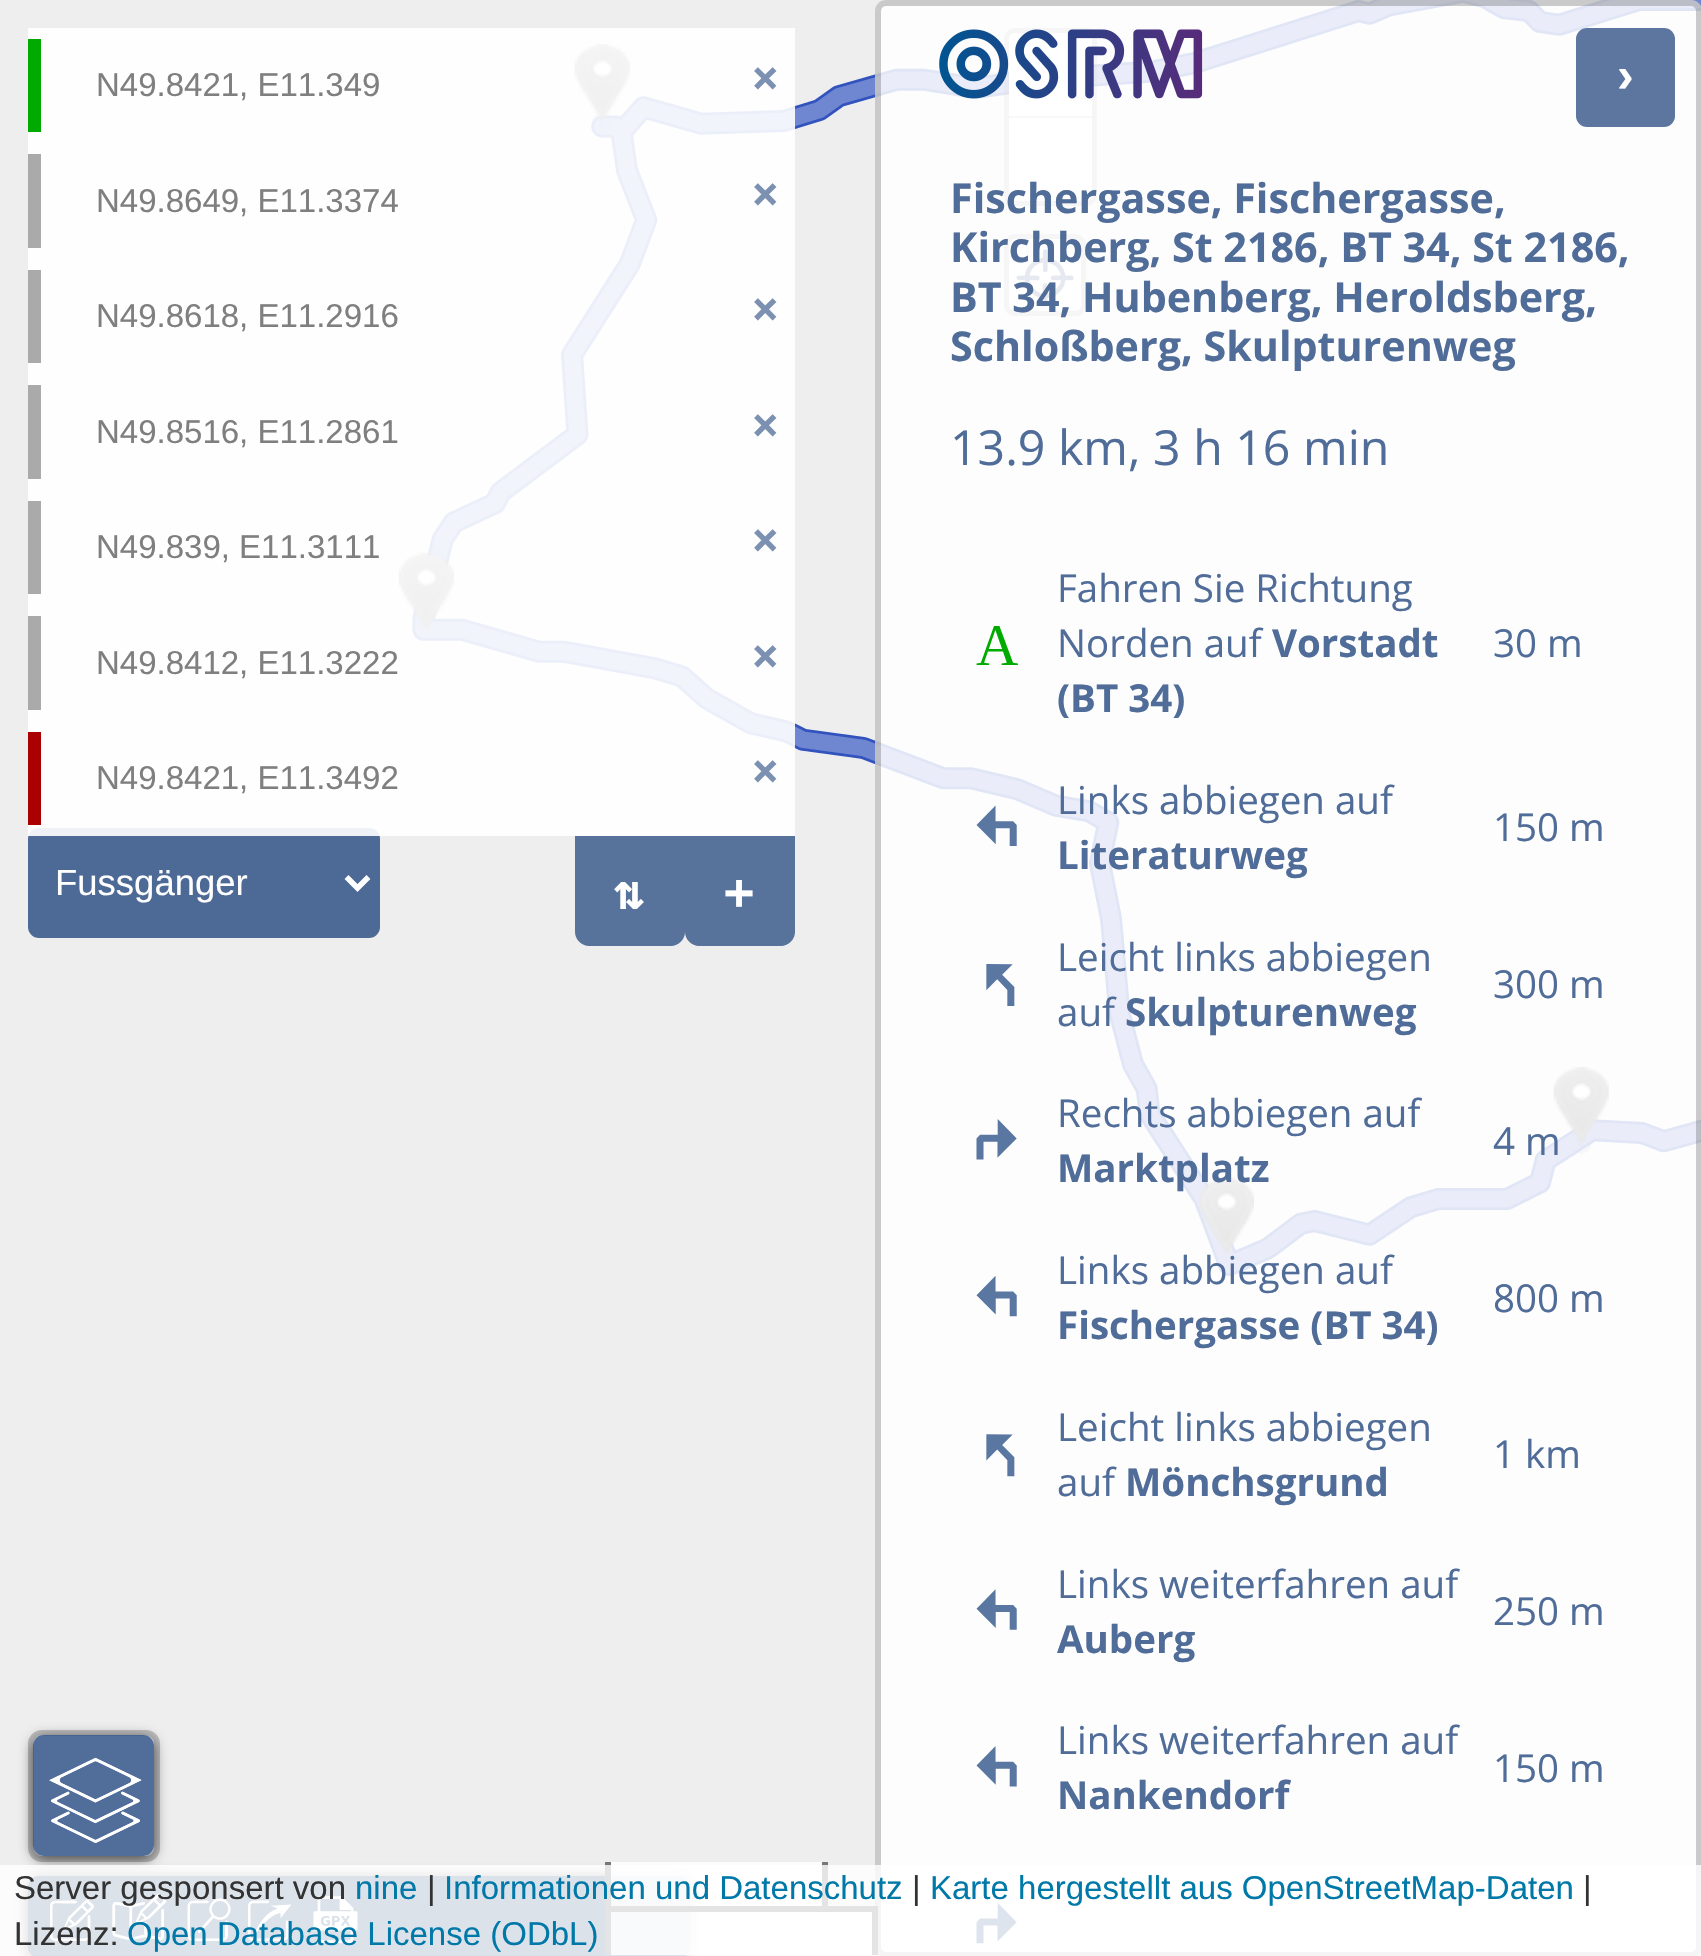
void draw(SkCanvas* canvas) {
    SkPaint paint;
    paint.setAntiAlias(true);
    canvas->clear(0xFFEEEEEE);
    canvas->drawImageRect(SkImages::DeferredFromEncodedData(SkData::MakeFromFileName("img1.png")), SkRect::MakeXYWH(412, 0, 1289, 1276), SkSamplingOptions());
    canvas->drawImageRect(SkImages::DeferredFromEncodedData(SkData::MakeFromFileName("img2.png")), SkRect::MakeXYWH(574, 44, 56, 78), SkSamplingOptions());
    canvas->drawImageRect(SkImages::DeferredFromEncodedData(SkData::MakeFromFileName("img3.png")), SkRect::MakeXYWH(398, 552, 56, 79), SkSamplingOptions());
    canvas->drawImageRect(SkImages::DeferredFromEncodedData(SkData::MakeFromFileName("img4.png")), SkRect::MakeXYWH(1553, 1067, 56, 78), SkSamplingOptions());
    canvas->drawImageRect(SkImages::DeferredFromEncodedData(SkData::MakeFromFileName("img5.png")), SkRect::MakeXYWH(1199, 1177, 55, 78), SkSamplingOptions());
    paint.setStyle(SkPaint::kStroke_Style);
    paint.setStrokeWidth(6);
    paint.setColor(0x33000000);
    canvas->drawRoundRect(SkRect::MakeXYWH(1007, 31, 87, 172), 8, 8, paint);
    paint.setStyle(SkPaint::kFill_Style);
    paint.setColor(0xFFFFFFFF);
    canvas->drawPath(SkPathBuilder().moveTo(1015, 33).lineTo(1086, 33).cubicTo(1089.5f, 33, 1092, 35.5f, 1092, 39).lineTo(1092, 118).lineTo(1009, 118).lineTo(1009, 39).cubicTo(1009, 35.5f, 1011.5f, 33, 1015, 33).close().detach(), paint);
    paint.setColor(0xFFCCCCCC);
    canvas->drawRect(SkRect::MakeXYWH(1009, 116, 83, 2), paint);
    paint.setColor(0xFFFFFFFF);
    canvas->drawPath(SkPathBuilder().moveTo(1009, 118).lineTo(1092, 118).lineTo(1092, 195).cubicTo(1092, 198.5f, 1089.5f, 201, 1086, 201).lineTo(1015, 201).cubicTo(1011.5f, 201, 1009, 198.5f, 1009, 195).close().detach(), paint);
    paint.setStyle(SkPaint::kStroke_Style);
    paint.setColor(0xFFBEBEBE);
    canvas->drawRoundRect(SkRect::MakeXYWH(1007, 237, 76, 76), 8, 8, paint);
    paint.setStyle(SkPaint::kFill_Style);
    paint.setColor(0xFFFFFFFF);
    canvas->drawRoundRect(SkRect::MakeXYWH(1009, 239, 72, 72), 6, 6, paint);
    canvas->drawImageRect(SkImages::DeferredFromEncodedData(SkData::MakeFromFileName("img6.png")), SkRect::MakeXYWH(1016, 249, 58, 58), SkSamplingOptions());
    paint.setColor(0xD9FFFFFF);
    canvas->drawRoundRect(SkRect::MakeXYWH(875, 0, 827, 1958), 11, 11, paint);
    paint.setStyle(SkPaint::kStroke_Style);
    paint.setColor(0x33000000);
    canvas->drawRoundRect(SkRect::MakeXYWH(878, 3, 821, 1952), 8, 8, paint);
    paint.setStyle(SkPaint::kFill_Style);
    paint.setColor(0xE6FFFFFF);
    canvas->drawRect(SkRect::MakeXYWH(28, 28, 767, 115), paint);
    paint.setColor(0xFF00AA00);
    canvas->drawRect(SkRect::MakeXYWH(28, 39, 13, 93), paint);
    SkFont font1(fontMgr->matchFamilyStyle("Liberation Sans", SkFontStyle::Normal()), 33);
    font1.setSubpixel(true);
    paint.setColor(0xFF7F7F7F);
    canvas->drawString("N49.8421, E11.349", 96, 96, font1, paint);
    SkFont font2(fontMgr->matchFamilyStyle("Open Sans", SkFontStyle::Bold()), 50);
    font2.setSubpixel(true);
    paint.setColor(0xFF7C91B2);
    canvas->drawString("×", 751, 96, font2, paint);
    paint.setColor(0xE6FFFFFF);
    canvas->drawRect(SkRect::MakeXYWH(28, 143, 767, 116), paint);
    paint.setColor(0xFFAAAAAA);
    canvas->drawRect(SkRect::MakeXYWH(28, 154, 13, 94), paint);
    paint.setColor(0xFF7F7F7F);
    canvas->drawString("N49.8649, E11.3374", 96, 212, font1, paint);
    paint.setColor(0xFF7C91B2);
    canvas->drawString("×", 751, 212, font2, paint);
    paint.setColor(0xE6FFFFFF);
    canvas->drawRect(SkRect::MakeXYWH(28, 259, 767, 115), paint);
    paint.setColor(0xFFAAAAAA);
    canvas->drawRect(SkRect::MakeXYWH(28, 270, 13, 93), paint);
    paint.setColor(0xFF7F7F7F);
    canvas->drawString("N49.8618, E11.2916", 96, 327, font1, paint);
    paint.setColor(0xFF7C91B2);
    canvas->drawString("×", 751, 327, font2, paint);
    paint.setColor(0xE6FFFFFF);
    canvas->drawRect(SkRect::MakeXYWH(28, 374, 767, 116), paint);
    paint.setColor(0xFFAAAAAA);
    canvas->drawRect(SkRect::MakeXYWH(28, 385, 13, 94), paint);
    paint.setColor(0xFF7F7F7F);
    canvas->drawString("N49.8516, E11.2861", 96, 443, font1, paint);
    paint.setColor(0xFF7C91B2);
    canvas->drawString("×", 751, 443, font2, paint);
    paint.setColor(0xE6FFFFFF);
    canvas->drawRect(SkRect::MakeXYWH(28, 490, 767, 115), paint);
    paint.setColor(0xFFAAAAAA);
    canvas->drawRect(SkRect::MakeXYWH(28, 501, 13, 93), paint);
    paint.setColor(0xFF7F7F7F);
    canvas->drawString("N49.839, E11.3111", 96, 558, font1, paint);
    paint.setColor(0xFF7C91B2);
    canvas->drawString("×", 751, 558, font2, paint);
    paint.setColor(0xE6FFFFFF);
    canvas->drawRect(SkRect::MakeXYWH(28, 605, 767, 116), paint);
    paint.setColor(0xFFAAAAAA);
    canvas->drawRect(SkRect::MakeXYWH(28, 616, 13, 94), paint);
    paint.setColor(0xFF7F7F7F);
    canvas->drawString("N49.8412, E11.3222", 96, 674, font1, paint);
    paint.setColor(0xFF7C91B2);
    canvas->drawString("×", 751, 674, font2, paint);
    paint.setColor(0xFF4D6995);
    canvas->drawRoundRect(SkRect::MakeXYWH(28, 828, 352, 110), 11, 11, paint);
    paint.setColor(0xE6FFFFFF);
    canvas->drawRect(SkRect::MakeXYWH(28, 721, 767, 115), paint);
    paint.setColor(0xFFAA0000);
    canvas->drawRect(SkRect::MakeXYWH(28, 732, 13, 93), paint);
    paint.setColor(0xFF7F7F7F);
    canvas->drawString("N49.8421, E11.3492", 96, 789, font1, paint);
    paint.setColor(0xFF7C91B2);
    canvas->drawString("×", 751, 789, font2, paint);
    paint.setStyle(SkPaint::kStroke_Style);
    paint.setStrokeWidth(5.5f);
    paint.setColor(0xFFFFFFFF);
    canvas->drawPath(SkPathBuilder().moveTo(346.5f, 877).lineTo(357.5f, 888).lineTo(368.5f, 877).detach(), paint);
    SkFont font3(fontMgr->matchFamilyStyle("Liberation Sans", SkFontStyle::Normal()), 36.5f);
    font3.setSubpixel(true);
    paint.setStyle(SkPaint::kFill_Style);
    canvas->drawString("Fussgänger", 55, 895, font3, paint);
    paint.setColor(0xFF57729B);
    canvas->drawPath(SkPathBuilder().moveTo(575, 836).lineTo(685, 836).lineTo(685, 932).cubicTo(685, 939.5f, 678.5f, 946, 671, 946).lineTo(589, 946).cubicTo(581.5f, 946, 575, 939.5f, 575, 932).close().detach(), paint);
    SkFont font4(fontMgr->matchFamilyStyle("DejaVu Sans Mono", SkFontStyle::Bold()), 50);
    font4.setSubpixel(true);
    paint.setColor(0xFFFFFFFF);
    canvas->drawString("⇅", 614, 909, font4, paint);
    paint.setColor(0xFF57729B);
    canvas->drawPath(SkPathBuilder().moveTo(685, 836).lineTo(795, 836).lineTo(795, 932).cubicTo(795, 939.5f, 788.5f, 946, 781, 946).lineTo(699, 946).cubicTo(691.5f, 946, 685, 939.5f, 685, 932).close().detach(), paint);
    paint.setColor(0xFFFFFFFF);
    canvas->drawString("+", 724, 909, font4, paint);
    paint.setColor(0xBF25487F);
    canvas->drawRoundRect(SkRect::MakeXYWH(1576, 28, 99, 99), 11, 11, paint);
    SkFont font5(fontMgr->matchFamilyStyle("Liberation Sans", SkFontStyle::Bold()), 50);
    font5.setSubpixel(true);
    paint.setColor(0xFFFFFFFF);
    canvas->drawString("›", 1617, 92, font5, paint);
    canvas->drawImageRect(SkImages::DeferredFromEncodedData(SkData::MakeFromFileName("img7.png")), SkRect::MakeXYWH(939, 29, 264, 70), SkSamplingOptions());
    SkFont font6(fontMgr->matchFamilyStyle("Open Sans", SkFontStyle::Bold()), 41.25f);
    font6.setSubpixel(true);
    paint.setColor(0xFF506C98);
    canvas->drawString("Fischergasse, Fischergasse,", 950, 213, font6, paint);
    canvas->drawString("Kirchberg, St 2186, BT 34, St 2186,", 950, 262, font6, paint);
    canvas->drawString("BT 34, Hubenberg, Heroldsberg,", 950, 312, font6, paint);
    canvas->drawString("Schloßberg, Skulpturenweg", 950, 361, font6, paint);
    SkFont font7(fontMgr->matchFamilyStyle("Open Sans", SkFontStyle::Normal()), 48.25f);
    font7.setSubpixel(true);
    canvas->drawString("13.9 km, 3 h 16 min", 950, 465, font7, paint);
    canvas->drawImageRect(SkImages::DeferredFromEncodedData(SkData::MakeFromFileName("img8.png")), SkRect::MakeXYWH(976, 626, 42, 39), SkSamplingOptions());
    SkFont font8(fontMgr->matchFamilyStyle("Open Sans", SkFontStyle::Normal()), 38.5f);
    font8.setSubpixel(true);
    canvas->drawString("Fahren Sie Richtung", 1057, 602, font8, paint);
    canvas->drawString("Norden auf", 1057, 657, font8, paint);
    SkFont font9(fontMgr->matchFamilyStyle("Open Sans", SkFontStyle::Bold()), 38.5f);
    font9.setSubpixel(true);
    canvas->drawString("Vorstadt", 1272, 657, font9, paint);
    canvas->drawString("(BT 34)", 1057, 712, font9, paint);
    canvas->drawString("30 m", 1493, 657, font8, paint);
    canvas->drawImageRect(SkImages::DeferredFromEncodedData(SkData::MakeFromFileName("img9.png")), SkRect::MakeXYWH(976, 805, 41, 41), SkSamplingOptions());
    canvas->drawString("Links abbiegen auf", 1057, 814, font8, paint);
    canvas->drawString("Literaturweg", 1057, 869, font9, paint);
    canvas->drawString("150 m", 1493, 841, font8, paint);
    canvas->drawImageRect(SkImages::DeferredFromEncodedData(SkData::MakeFromFileName("img10.png")), SkRect::MakeXYWH(986, 964, 29, 42), SkSamplingOptions());
    canvas->drawString("Leicht links abbiegen", 1057, 971, font8, paint);
    canvas->drawString("auf", 1057, 1026, font8, paint);
    canvas->drawString("Skulpturenweg", 1125, 1026, font9, paint);
    canvas->drawString("300 m", 1493, 998, font8, paint);
    canvas->drawImageRect(SkImages::DeferredFromEncodedData(SkData::MakeFromFileName("img11.png")), SkRect::MakeXYWH(976, 1119, 41, 41), SkSamplingOptions());
    canvas->drawString("Rechts abbiegen auf", 1057, 1127, font8, paint);
    canvas->drawString("Marktplatz", 1057, 1182, font9, paint);
    canvas->drawString("4 m", 1493, 1155, font8, paint);
    canvas->drawImageRect(SkImages::DeferredFromEncodedData(SkData::MakeFromFileName("img12.png")), SkRect::MakeXYWH(976, 1276, 41, 41), SkSamplingOptions());
    canvas->drawString("Links abbiegen auf", 1057, 1284, font8, paint);
    canvas->drawString("Fischergasse (BT 34)", 1057, 1339, font9, paint);
    canvas->drawString("800 m", 1493, 1312, font8, paint);
    canvas->drawImageRect(SkImages::DeferredFromEncodedData(SkData::MakeFromFileName("img13.png")), SkRect::MakeXYWH(986, 1434, 29, 43), SkSamplingOptions());
    canvas->drawString("Leicht links abbiegen", 1057, 1441, font8, paint);
    canvas->drawString("auf", 1057, 1496, font8, paint);
    canvas->drawString("Mönchsgrund", 1125, 1496, font9, paint);
    canvas->drawString("1 km", 1493, 1468, font8, paint);
    canvas->drawImageRect(SkImages::DeferredFromEncodedData(SkData::MakeFromFileName("img14.png")), SkRect::MakeXYWH(976, 1589, 41, 41), SkSamplingOptions());
    canvas->drawString("Links weiterfahren auf", 1057, 1598, font8, paint);
    canvas->drawString("Auberg", 1057, 1653, font9, paint);
    canvas->drawString("250 m", 1493, 1625, font8, paint);
    canvas->drawImageRect(SkImages::DeferredFromEncodedData(SkData::MakeFromFileName("img15.png")), SkRect::MakeXYWH(976, 1746, 41, 41), SkSamplingOptions());
    canvas->drawString("Links weiterfahren auf", 1057, 1754, font8, paint);
    canvas->drawString("Nankendorf", 1057, 1809, font9, paint);
    canvas->drawString("150 m", 1493, 1782, font8, paint);
    canvas->drawImageRect(SkImages::DeferredFromEncodedData(SkData::MakeFromFileName("img16.png")), SkRect::MakeXYWH(976, 1903, 41, 41), SkSamplingOptions());
    paint.setColor(0xFFFFFFFF);
    canvas->drawRoundRect(SkRect::MakeXYWH(33, 1735, 121, 121), 8, 8, paint);
    canvas->save();
    canvas->clipPath(SkPathBuilder(SkPathFillType::kEvenOdd).moveTo(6, 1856).lineTo(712, 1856).lineTo(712, 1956).lineTo(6, 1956).close().moveTo(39, 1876).lineTo(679, 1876).cubicTo(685, 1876, 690, 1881, 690, 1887).lineTo(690, 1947).cubicTo(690, 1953, 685, 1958, 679, 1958).lineTo(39, 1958).cubicTo(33, 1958, 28, 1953, 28, 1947).lineTo(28, 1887).cubicTo(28, 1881, 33, 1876, 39, 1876).close().detach(), true);
    paint.setColor(0xA6000000);
    paint.setMaskFilter(SkMaskFilter::MakeBlur(kNormal_SkBlurStyle, 7));
    canvas->drawRoundRect(SkRect::MakeXYWH(28, 1878, 662, 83), 11, 11, paint);
    paint.setMaskFilter(nullptr);
    canvas->restore();
    paint.setStyle(SkPaint::kStroke_Style);
    paint.setStrokeWidth(6);
    paint.setColor(0x33000000);
    canvas->drawRoundRect(SkRect::MakeXYWH(31, 1733, 126, 126), 11, 11, paint);
    paint.setStyle(SkPaint::kFill_Style);
    paint.setColor(0xCC25487F);
    canvas->drawRoundRect(SkRect::MakeXYWH(28, 1876, 662, 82), 11, 11, paint);
    canvas->save();
    canvas->clipPath(SkPathBuilder(SkPathFillType::kEvenOdd).moveTo(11, 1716).lineTo(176, 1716).lineTo(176, 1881).lineTo(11, 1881).close().moveTo(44, 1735).lineTo(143, 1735).cubicTo(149, 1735, 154, 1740, 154, 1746).lineTo(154, 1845).cubicTo(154, 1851, 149, 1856, 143, 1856).lineTo(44, 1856).cubicTo(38, 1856, 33, 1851, 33, 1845).lineTo(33, 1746).cubicTo(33, 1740, 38, 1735, 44, 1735).close().detach(), true);
    paint.setColor(0xA6000000);
    paint.setMaskFilter(SkMaskFilter::MakeBlur(kNormal_SkBlurStyle, 7));
    canvas->drawRoundRect(SkRect::MakeXYWH(33, 1738, 121, 121), 11, 11, paint);
    paint.setMaskFilter(nullptr);
    canvas->restore();
    paint.setColor(0xCC25487F);
    canvas->drawRoundRect(SkRect::MakeXYWH(33, 1735, 121, 121), 11, 11, paint);
    canvas->drawImageRect(SkImages::DeferredFromEncodedData(SkData::MakeFromFileName("img17.png")), SkRect::MakeXYWH(49, 1757, 93, 86), SkSamplingOptions());
    canvas->drawImageRect(SkImages::DeferredFromEncodedData(SkData::MakeFromFileName("img18.png")), SkRect::MakeXYWH(50, 1899, 44, 42), SkSamplingOptions());
    canvas->drawImageRect(SkImages::DeferredFromEncodedData(SkData::MakeFromFileName("img19.png")), SkRect::MakeXYWH(112, 1893, 55, 48), SkSamplingOptions());
    canvas->drawImageRect(SkImages::DeferredFromEncodedData(SkData::MakeFromFileName("img20.png")), SkRect::MakeXYWH(187, 1898, 44, 43), SkSamplingOptions());
    canvas->drawImageRect(SkImages::DeferredFromEncodedData(SkData::MakeFromFileName("img21.png")), SkRect::MakeXYWH(248, 1900, 44, 41), SkSamplingOptions());
    canvas->drawImageRect(SkImages::DeferredFromEncodedData(SkData::MakeFromFileName("img22.png")), SkRect::MakeXYWH(313, 1896, 45, 47), SkSamplingOptions());
    paint.setColor(0xCCFFFFFF);
    canvas->drawRect(SkRect::MakeXYWH(611, 1862, 211, 44), paint);
    paint.setColor(0xFF777777);
    canvas->drawRect(SkRect::MakeXYWH(822, 1862, 6, 49), paint);
    canvas->drawRect(SkRect::MakeXYWH(605, 1862, 6, 49), paint);
    paint.setColor(0xCCFFFFFF);
    canvas->drawRect(SkRect::MakeXYWH(611, 1912, 261, 43), paint);
    paint.setColor(0xFF777777);
    canvas->drawRect(SkRect::MakeXYWH(605, 1906, 272, 6), paint);
    canvas->drawRect(SkRect::MakeXYWH(872, 1906, 6, 49), paint);
    canvas->drawRect(SkRect::MakeXYWH(605, 1906, 6, 49), paint);
    paint.setColor(0xCCFFFFFF);
    canvas->drawRect(SkRect::MakeXYWH(0, 1865, 1701, 91), paint);
    paint.setColor(0xFF333333);
    canvas->drawString("Server gesponsert von", 14, 1899, font1, paint);
    paint.setColor(0xFF0078A8);
    canvas->drawString("nine", 355, 1899, font1, paint);
    paint.setColor(0xFF333333);
    canvas->drawString("|", 427, 1899, font1, paint);
    paint.setColor(0xFF0078A8);
    canvas->drawString("Informationen und Datenschutz", 444, 1899, font1, paint);
    paint.setColor(0xFF333333);
    canvas->drawString("|", 912, 1899, font1, paint);
    paint.setColor(0xFF0078A8);
    canvas->drawString("Karte hergestellt aus OpenStreetMap-Daten", 930, 1899, font1, paint);
    paint.setColor(0xFF333333);
    canvas->drawString("|", 1583, 1899, font1, paint);
    canvas->drawString("Lizenz:", 14, 1945, font1, paint);
    paint.setColor(0xFF0078A8);
    canvas->drawString("Open Database License (ODbL)", 127, 1945, font1, paint);
}
